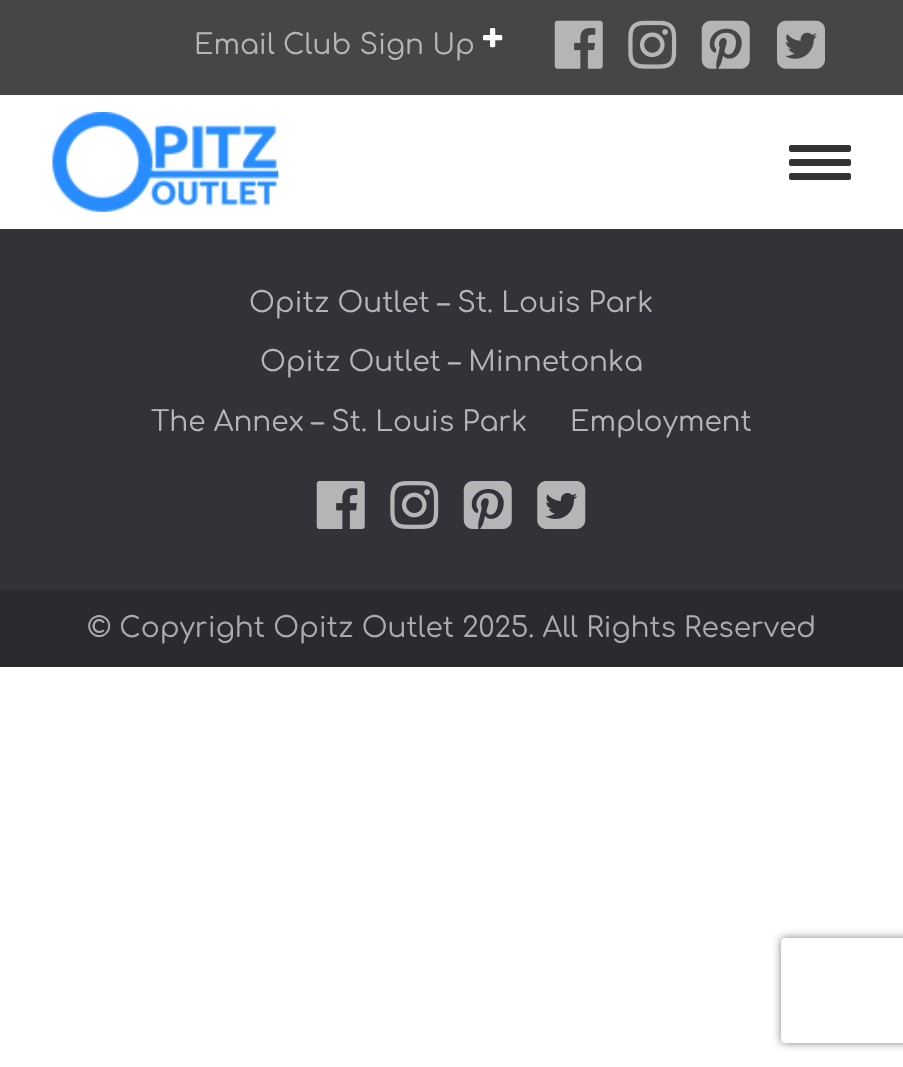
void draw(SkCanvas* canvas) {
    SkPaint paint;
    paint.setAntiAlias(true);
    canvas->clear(0xFFFFFFFF);
    paint.setColor(0xFF464646);
    canvas->drawRect(SkRect::MakeXYWH(0, 0, 903, 95), paint);
    SkFont font1(fontMgr->matchFamilyStyle("Comfortaa", SkFontStyle::Normal()), 28);
    font1.setSubpixel(true);
    paint.setColor(0xFFB5B5B5);
    canvas->drawString("Email Club Sign Up", 194, 54, font1, paint);
    canvas->drawImageRect(SkImages::DeferredFromEncodedData(SkData::MakeFromFileName("img1.png")), SkRect::MakeXYWH(483, 28, 20, 20), SkSamplingOptions());
    canvas->drawImageRect(SkImages::DeferredFromEncodedData(SkData::MakeFromFileName("img2.png")), SkRect::MakeXYWH(554, 20, 49, 49), SkSamplingOptions());
    canvas->drawImageRect(SkImages::DeferredFromEncodedData(SkData::MakeFromFileName("img3.png")), SkRect::MakeXYWH(628, 20, 49, 49), SkSamplingOptions());
    canvas->drawImageRect(SkImages::DeferredFromEncodedData(SkData::MakeFromFileName("img4.png")), SkRect::MakeXYWH(701, 20, 49, 49), SkSamplingOptions());
    canvas->drawImageRect(SkImages::DeferredFromEncodedData(SkData::MakeFromFileName("img5.png")), SkRect::MakeXYWH(777, 20, 48, 49), SkSamplingOptions());
    canvas->drawImageRect(SkImages::DeferredFromEncodedData(SkData::MakeFromFileName("img6.png")), SkRect::MakeXYWH(52, 112, 227, 100), SkSamplingOptions());
    paint.setColor(0xFF333333);
    canvas->drawRoundRect(SkRect::MakeXYWH(789, 145, 62, 7), 2, 2, paint);
    canvas->drawRoundRect(SkRect::MakeXYWH(789, 159, 62, 7), 2, 2, paint);
    canvas->drawRoundRect(SkRect::MakeXYWH(789, 173, 62, 7), 2, 2, paint);
    paint.setColor(0xFF313339);
    canvas->drawRect(SkRect::MakeXYWH(0, 229, 903, 361), paint);
    paint.setColor(0xFFB5B5B5);
    canvas->drawString("Opitz Outlet – St. Louis Park", 249, 312, font1, paint);
    canvas->drawString("Opitz Outlet – Minnetonka", 260, 371, font1, paint);
    canvas->drawString("The Annex – St. Louis Park", 151, 431, font1, paint);
    canvas->drawString("Employment", 570, 431, font1, paint);
    canvas->drawImageRect(SkImages::DeferredFromEncodedData(SkData::MakeFromFileName("img7.png")), SkRect::MakeXYWH(316, 481, 49, 48), SkSamplingOptions());
    canvas->drawImageRect(SkImages::DeferredFromEncodedData(SkData::MakeFromFileName("img8.png")), SkRect::MakeXYWH(390, 481, 49, 48), SkSamplingOptions());
    canvas->drawImageRect(SkImages::DeferredFromEncodedData(SkData::MakeFromFileName("img9.png")), SkRect::MakeXYWH(463, 481, 49, 48), SkSamplingOptions());
    canvas->drawImageRect(SkImages::DeferredFromEncodedData(SkData::MakeFromFileName("img10.png")), SkRect::MakeXYWH(537, 481, 49, 48), SkSamplingOptions());
    paint.setColor(0xFF292B30);
    canvas->drawRect(SkRect::MakeXYWH(0, 590, 903, 77), paint);
    paint.setColor(0xFFABABAD);
    canvas->drawString("© Copyright Opitz Outlet 2025. All Rights Reserved", 87, 637, font1, paint);
    canvas->save();
    canvas->clipPath(SkPathBuilder(SkPathFillType::kEvenOdd).moveTo(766, 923).lineTo(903, 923).lineTo(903, 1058).lineTo(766, 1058).close().moveTo(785, 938).lineTo(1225, 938).cubicTo(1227, 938, 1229, 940, 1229, 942).lineTo(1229, 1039).cubicTo(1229, 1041, 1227, 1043, 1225, 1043).lineTo(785, 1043).cubicTo(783, 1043, 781, 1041, 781, 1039).lineTo(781, 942).cubicTo(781, 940, 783, 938, 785, 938).close().detach(), true);
    paint.setColor(0xFF808080);
    paint.setMaskFilter(SkMaskFilter::MakeBlur(kNormal_SkBlurStyle, 4.5f));
    canvas->drawRoundRect(SkRect::MakeXYWH(781, 938, 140, 105), 4, 4, paint);
    paint.setMaskFilter(nullptr);
    canvas->restore();
}
